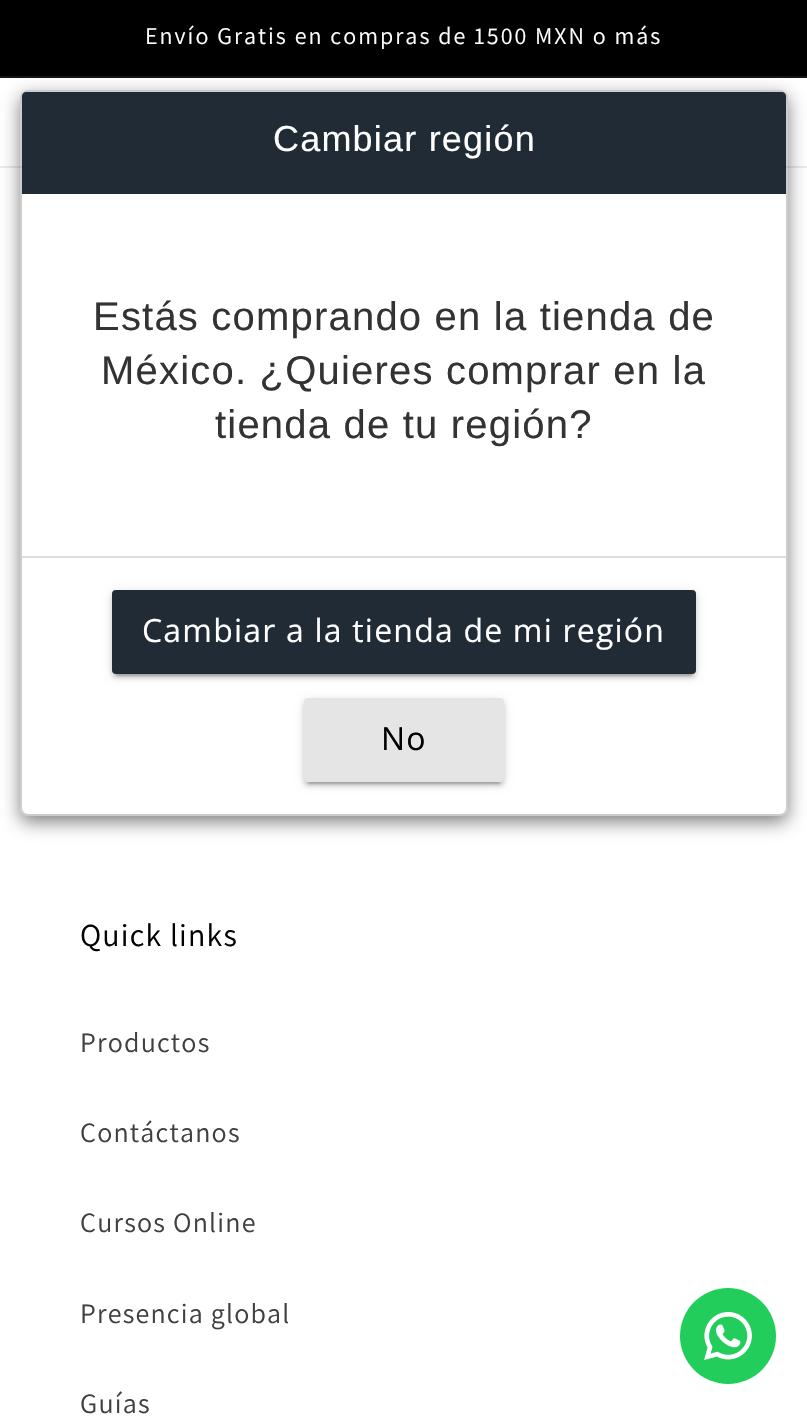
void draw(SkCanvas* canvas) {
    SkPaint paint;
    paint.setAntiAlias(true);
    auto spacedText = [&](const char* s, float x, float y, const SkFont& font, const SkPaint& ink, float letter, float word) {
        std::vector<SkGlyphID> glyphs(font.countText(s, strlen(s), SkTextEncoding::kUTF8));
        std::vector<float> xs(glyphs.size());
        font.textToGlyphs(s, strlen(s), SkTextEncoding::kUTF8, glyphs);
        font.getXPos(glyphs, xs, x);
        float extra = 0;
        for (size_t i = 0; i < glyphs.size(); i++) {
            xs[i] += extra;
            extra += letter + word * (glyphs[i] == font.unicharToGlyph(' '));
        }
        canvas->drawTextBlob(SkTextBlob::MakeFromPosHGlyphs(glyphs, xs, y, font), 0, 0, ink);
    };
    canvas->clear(0xFFFFFFFF);
    paint.setColor(0xFF000000);
    canvas->drawRect(SkRect::MakeXYWH(0, 0, 807, 76), paint);
    paint.setColor(0xFF141414);
    canvas->drawRect(SkRect::MakeXYWH(0, 76, 807, 2), paint);
    SkFont font1(fontMgr->matchFamilyStyle("Assistant", SkFontStyle::Normal()), 24);
    font1.setSubpixel(true);
    paint.setColor(0xFFFFFFFF);
    spacedText("Envío Gratis en compras de 1500 MXN o más", 145, 44, font1, paint, 2, 0);
    paint.setColor(0xFFEBEBEB);
    canvas->drawRect(SkRect::MakeXYWH(0, 166, 807, 2), paint);
    canvas->save();
    canvas->clipPath(SkPathBuilder(SkPathFillType::kEvenOdd).moveTo(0, 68).lineTo(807, 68).lineTo(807, 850).lineTo(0, 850).close().moveTo(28, 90).lineTo(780, 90).cubicTo(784.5f, 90, 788, 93.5f, 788, 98).lineTo(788, 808).cubicTo(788, 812.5f, 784.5f, 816, 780, 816).lineTo(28, 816).cubicTo(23.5f, 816, 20, 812.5f, 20, 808).lineTo(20, 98).cubicTo(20, 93.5f, 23.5f, 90, 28, 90).close().detach(), true);
    paint.setColor(0x80000000);
    paint.setMaskFilter(SkMaskFilter::MakeBlur(kNormal_SkBlurStyle, 9));
    canvas->drawRoundRect(SkRect::MakeXYWH(20, 96, 768, 726), 8, 8, paint);
    paint.setMaskFilter(nullptr);
    canvas->restore();
    paint.setColor(0xFFFFFFFF);
    canvas->drawRoundRect(SkRect::MakeXYWH(22, 92, 764, 722), 6, 6, paint);
    paint.setStyle(SkPaint::kStroke_Style);
    paint.setStrokeWidth(2);
    paint.setColor(0x33000000);
    canvas->drawRoundRect(SkRect::MakeXYWH(21, 91, 766, 724), 7, 7, paint);
    paint.setStyle(SkPaint::kFill_Style);
    paint.setColor(0xFF212B35);
    canvas->drawPath(SkPathBuilder().moveTo(26, 92).lineTo(782, 92).cubicTo(784, 92, 786, 94, 786, 96).lineTo(786, 194).lineTo(22, 194).lineTo(22, 96).cubicTo(22, 94, 24, 92, 26, 92).close().detach(), paint);
    SkFont font2(fontMgr->matchFamilyStyle("Liberation Sans", SkFontStyle::Normal()), 36);
    font2.setSubpixel(true);
    paint.setColor(0xFFFFFFFF);
    spacedText("Cambiar región", 273, 151, font2, paint, 1.2f, 0);
    SkFont font3(fontMgr->matchFamilyStyle("Liberation Sans", SkFontStyle::Normal()), 40);
    font3.setSubpixel(true);
    paint.setColor(0xFF333333);
    spacedText("Estás comprando en la tienda de", 93, 330, font3, paint, 1.2f, 0);
    spacedText("México. ¿Quieres comprar en la", 101, 384, font3, paint, 1.2f, 0);
    spacedText("tienda de tu región?", 215, 438, font3, paint, 1.2f, 0);
    paint.setColor(0xFFDDDDDD);
    canvas->drawRect(SkRect::MakeXYWH(22, 556, 764, 2), paint);
    paint.setColor(0x1F000000);
    paint.setMaskFilter(SkMaskFilter::MakeBlur(kNormal_SkBlurStyle, 5));
    canvas->drawRoundRect(SkRect::MakeXYWH(112, 592, 584, 84), 4, 4, paint);
    paint.setMaskFilter(nullptr);
    paint.setColor(0x33000000);
    paint.setMaskFilter(SkMaskFilter::MakeBlur(kNormal_SkBlurStyle, 1));
    canvas->drawRect(SkRect::MakeXYWH(116, 600, 576, 76), paint);
    paint.setMaskFilter(nullptr);
    paint.setColor(0x24000000);
    paint.setMaskFilter(SkMaskFilter::MakeBlur(kNormal_SkBlurStyle, 2));
    canvas->drawRoundRect(SkRect::MakeXYWH(112, 594, 584, 84), 4, 4, paint);
    paint.setMaskFilter(nullptr);
    paint.setColor(0xFF212B35);
    canvas->drawRoundRect(SkRect::MakeXYWH(112, 590, 584, 84), 4, 4, paint);
    SkFont font4(fontMgr->matchFamilyStyle("Open Sans", SkFontStyle::Normal()), 32);
    font4.setSubpixel(true);
    paint.setColor(0xFFFFFFFF);
    spacedText("Cambiar a la tienda de mi región", 142, 642, font4, paint, 1.2f, 0);
    paint.setColor(0x1F000000);
    paint.setMaskFilter(SkMaskFilter::MakeBlur(kNormal_SkBlurStyle, 5));
    canvas->drawRoundRect(SkRect::MakeXYWH(304, 700, 200, 84), 4, 4, paint);
    paint.setMaskFilter(nullptr);
    paint.setColor(0x33000000);
    paint.setMaskFilter(SkMaskFilter::MakeBlur(kNormal_SkBlurStyle, 1));
    canvas->drawRect(SkRect::MakeXYWH(308, 708, 192, 76), paint);
    paint.setMaskFilter(nullptr);
    paint.setColor(0x24000000);
    paint.setMaskFilter(SkMaskFilter::MakeBlur(kNormal_SkBlurStyle, 2));
    canvas->drawRoundRect(SkRect::MakeXYWH(304, 702, 200, 84), 4, 4, paint);
    paint.setMaskFilter(nullptr);
    paint.setColor(0xFFE5E5E5);
    canvas->drawRoundRect(SkRect::MakeXYWH(304, 698, 200, 84), 4, 4, paint);
    paint.setColor(0xFF000000);
    spacedText("No", 381, 750, font4, paint, 1.2f, 0);
    SkFont font5(fontMgr->matchFamilyStyle("Assistant", SkFontStyle::Normal()), 32);
    font5.setSubpixel(true);
    spacedText("Quick links", 80, 946, font5, paint, 1.2f, 0);
    SkFont font6(fontMgr->matchFamilyStyle("Assistant", SkFontStyle::Normal()), 28);
    font6.setSubpixel(true);
    paint.setColor(0xFF404040);
    spacedText("Productos", 80, 1052, font6, paint, 1.2f, 0);
    spacedText("Contáctanos", 80, 1142, font6, paint, 1.2f, 0);
    spacedText("Cursos Online", 80, 1232, font6, paint, 1.2f, 0);
    spacedText("Presencia global", 80, 1323, font6, paint, 1.2f, 0);
    spacedText("Guías", 80, 1413, font6, paint, 1.2f, 0);
    paint.setColor(0xFF22CD5B);
    canvas->drawCircle(728, 1336, 48, paint);
    canvas->drawImageRect(SkImages::DeferredFromEncodedData(SkData::MakeFromFileName("img1.png")), SkRect::MakeXYWH(704, 1312, 48, 48), SkSamplingOptions());
}
